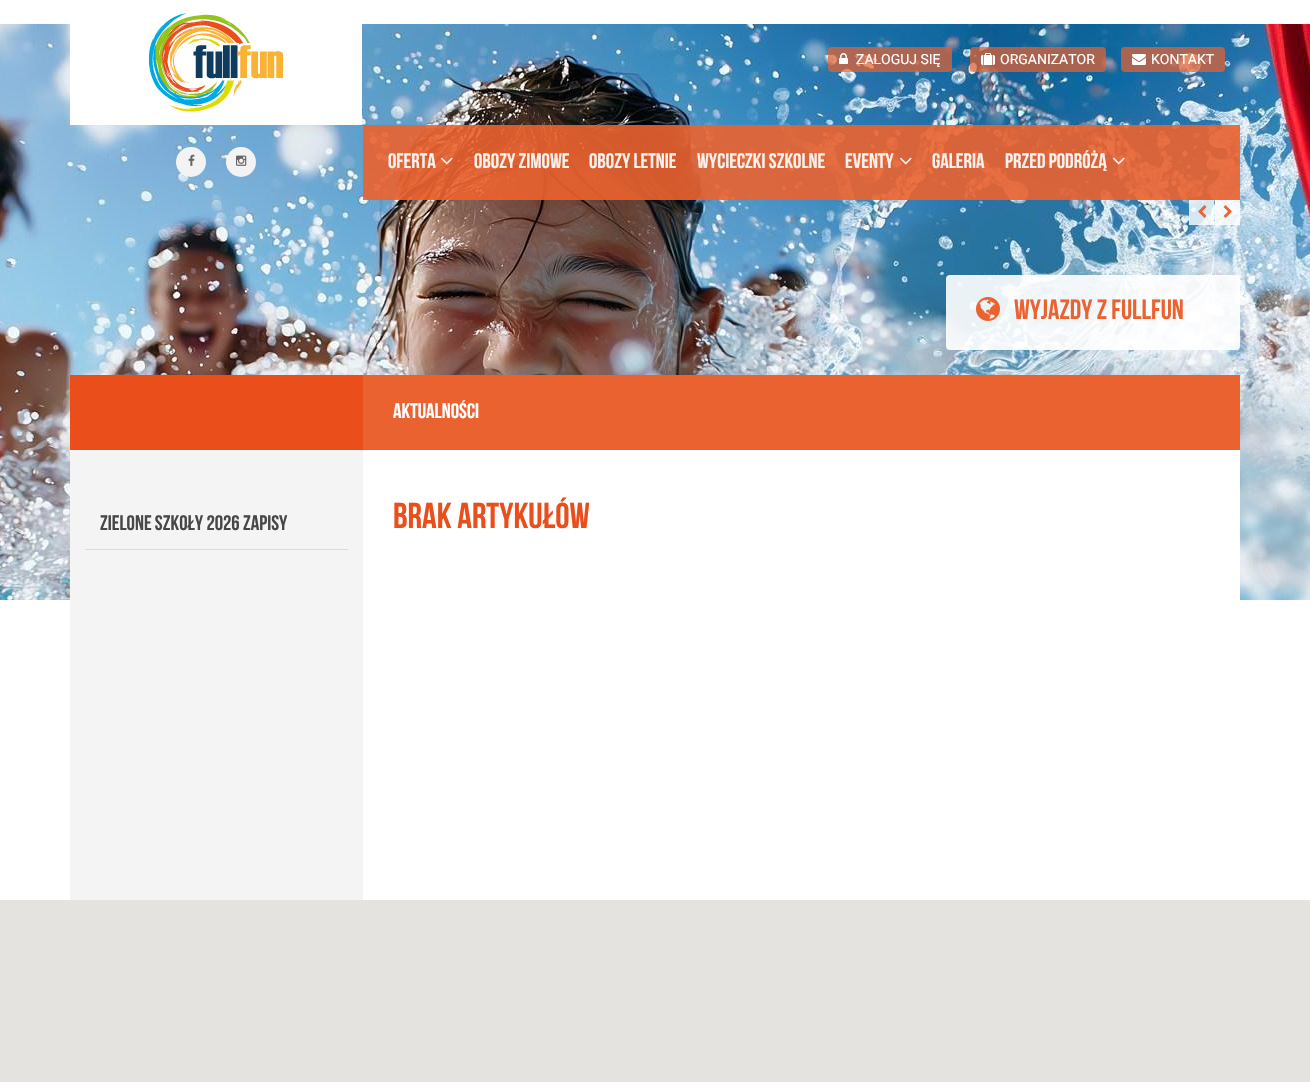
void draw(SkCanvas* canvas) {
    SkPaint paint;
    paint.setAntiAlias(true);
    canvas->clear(0xFFFFFFFF);
    canvas->drawImageRect(SkImages::DeferredFromEncodedData(SkData::MakeFromFileName("img1.png")), SkRect::MakeXYWH(0, 24, 1310, 576), SkSamplingOptions());
    paint.setColor(0xCCFFFFFF);
    canvas->drawRect(SkRect::MakeXYWH(1189, 200, 25, 25), paint);
    canvas->drawImageRect(SkImages::DeferredFromEncodedData(SkData::MakeFromFileName("img2.png")), SkRect::MakeXYWH(1198, 205, 9, 13), SkSamplingOptions());
    canvas->drawRect(SkRect::MakeXYWH(1215, 200, 25, 25), paint);
    canvas->drawImageRect(SkImages::DeferredFromEncodedData(SkData::MakeFromFileName("img3.png")), SkRect::MakeXYWH(1223, 205, 9, 13), SkSamplingOptions());
    paint.setColor(0xFFFFFFFF);
    canvas->drawRect(SkRect::MakeXYWH(70, 24, 292, 101), paint);
    canvas->drawImageRect(SkImages::DeferredFromEncodedData(SkData::MakeFromFileName("img4.png")), SkRect::MakeXYWH(149, 13, 134, 99), SkSamplingOptions());
    paint.setColor(0xB3EA622F);
    canvas->drawRoundRect(SkRect::MakeXYWH(828, 47, 124, 25), 4, 4, paint);
    canvas->drawImageRect(SkImages::DeferredFromEncodedData(SkData::MakeFromFileName("img5.png")), SkRect::MakeXYWH(839, 53, 9, 11), SkSamplingOptions());
    SkFont font1(fontMgr->matchFamilyStyle("Roboto", SkFontStyle::Normal()), 14);
    font1.setSubpixel(true);
    paint.setColor(0xFFFFFFFF);
    canvas->drawString("ZALOGUJ SIĘ", 856, 64, font1, paint);
    paint.setColor(0xB3EA622F);
    canvas->drawRoundRect(SkRect::MakeXYWH(970, 47, 136, 25), 4, 4, paint);
    canvas->drawImageRect(SkImages::DeferredFromEncodedData(SkData::MakeFromFileName("img6.png")), SkRect::MakeXYWH(981, 53, 14, 12), SkSamplingOptions());
    paint.setColor(0xFFFFFFFF);
    canvas->drawString("ORGANIZATOR", 1000, 64, font1, paint);
    paint.setColor(0xB3EA622F);
    canvas->drawRoundRect(SkRect::MakeXYWH(1121, 47, 104, 25), 4, 4, paint);
    canvas->drawImageRect(SkImages::DeferredFromEncodedData(SkData::MakeFromFileName("img7.png")), SkRect::MakeXYWH(1132, 54, 14, 11), SkSamplingOptions());
    paint.setColor(0xFFFFFFFF);
    canvas->drawString("KONTAKT", 1151, 64, font1, paint);
    paint.setColor(0xFFF3F3F3);
    canvas->drawCircle(191, 162, 15, paint);
    canvas->drawImageRect(SkImages::DeferredFromEncodedData(SkData::MakeFromFileName("img8.png")), SkRect::MakeXYWH(188, 154, 7, 12), SkSamplingOptions());
    canvas->drawCircle(241, 162, 15, paint);
    canvas->drawImageRect(SkImages::DeferredFromEncodedData(SkData::MakeFromFileName("img9.png")), SkRect::MakeXYWH(236, 155, 11, 11), SkSamplingOptions());
    paint.setColor(0xE6EA622F);
    canvas->drawRect(SkRect::MakeXYWH(363, 125, 877, 75), paint);
    SkFont font2(fontMgr->matchFamilyStyle("Bebas Neue", SkFontStyle::Bold()), 21);
    font2.setSubpixel(true);
    paint.setColor(0xFFFCF0EB);
    canvas->drawString("OFERTA", 388, 168, font2, paint);
    canvas->drawImageRect(SkImages::DeferredFromEncodedData(SkData::MakeFromFileName("img10.png")), SkRect::MakeXYWH(441, 157, 12, 8), SkSamplingOptions());
    canvas->drawString("OBOZY ZIMOWE", 474, 168, font2, paint);
    canvas->drawString("OBOZY LETNIE", 589, 168, font2, paint);
    canvas->drawString("WYCIECZKI SZKOLNE", 697, 168, font2, paint);
    canvas->drawString("EVENTY", 845, 168, font2, paint);
    canvas->drawImageRect(SkImages::DeferredFromEncodedData(SkData::MakeFromFileName("img11.png")), SkRect::MakeXYWH(900, 157, 12, 8), SkSamplingOptions());
    canvas->drawString("GALERIA", 932, 168, font2, paint);
    canvas->drawString("PRZED PODRÓŻĄ", 1005, 168, font2, paint);
    canvas->drawImageRect(SkImages::DeferredFromEncodedData(SkData::MakeFromFileName("img12.png")), SkRect::MakeXYWH(1113, 157, 12, 8), SkSamplingOptions());
    paint.setColor(0xE6FFFFFF);
    canvas->drawRoundRect(SkRect::MakeXYWH(946, 275, 294, 75), 4, 4, paint);
    canvas->drawImageRect(SkImages::DeferredFromEncodedData(SkData::MakeFromFileName("img13.png")), SkRect::MakeXYWH(976, 297, 24, 24), SkSamplingOptions());
    SkFont font3(fontMgr->matchFamilyStyle("Bebas Neue", SkFontStyle::Bold()), 28);
    font3.setSubpixel(true);
    paint.setColor(0xFFEA622F);
    canvas->drawString("Wyjazdy z Fullfun", 1014, 319, font3, paint);
    paint.setColor(0xFFFFFFFF);
    canvas->drawRect(SkRect::MakeXYWH(363, 450, 877, 150), paint);
    paint.setColor(0xFFEA4E1B);
    canvas->drawRect(SkRect::MakeXYWH(70, 375, 293, 75), paint);
    paint.setColor(0xFFF4F4F4);
    canvas->drawRect(SkRect::MakeXYWH(70, 450, 293, 450), paint);
    paint.setColor(0xFFDADADA);
    canvas->drawRect(SkRect::MakeXYWH(85, 549, 263, 1), paint);
    paint.setColor(0xFF474747);
    canvas->drawString("Zielone szkoły 2026 zapisy", 100, 530, font2, paint);
    paint.setColor(0xFFEA622F);
    canvas->drawRect(SkRect::MakeXYWH(363, 375, 877, 75), paint);
    paint.setColor(0xFFFFFFFF);
    canvas->drawString("AKTUALNOŚCI", 393, 418, font2, paint);
    SkFont font4(fontMgr->matchFamilyStyle("Bebas Neue", SkFontStyle::Bold()), 36);
    font4.setSubpixel(true);
    paint.setColor(0xFFEA4E1B);
    canvas->drawString("Brak artykułów", 393, 528, font4, paint);
    paint.setColor(0xFFE5E3DF);
    canvas->drawRect(SkRect::MakeXYWH(0, 900, 1310, 182), paint);
}
